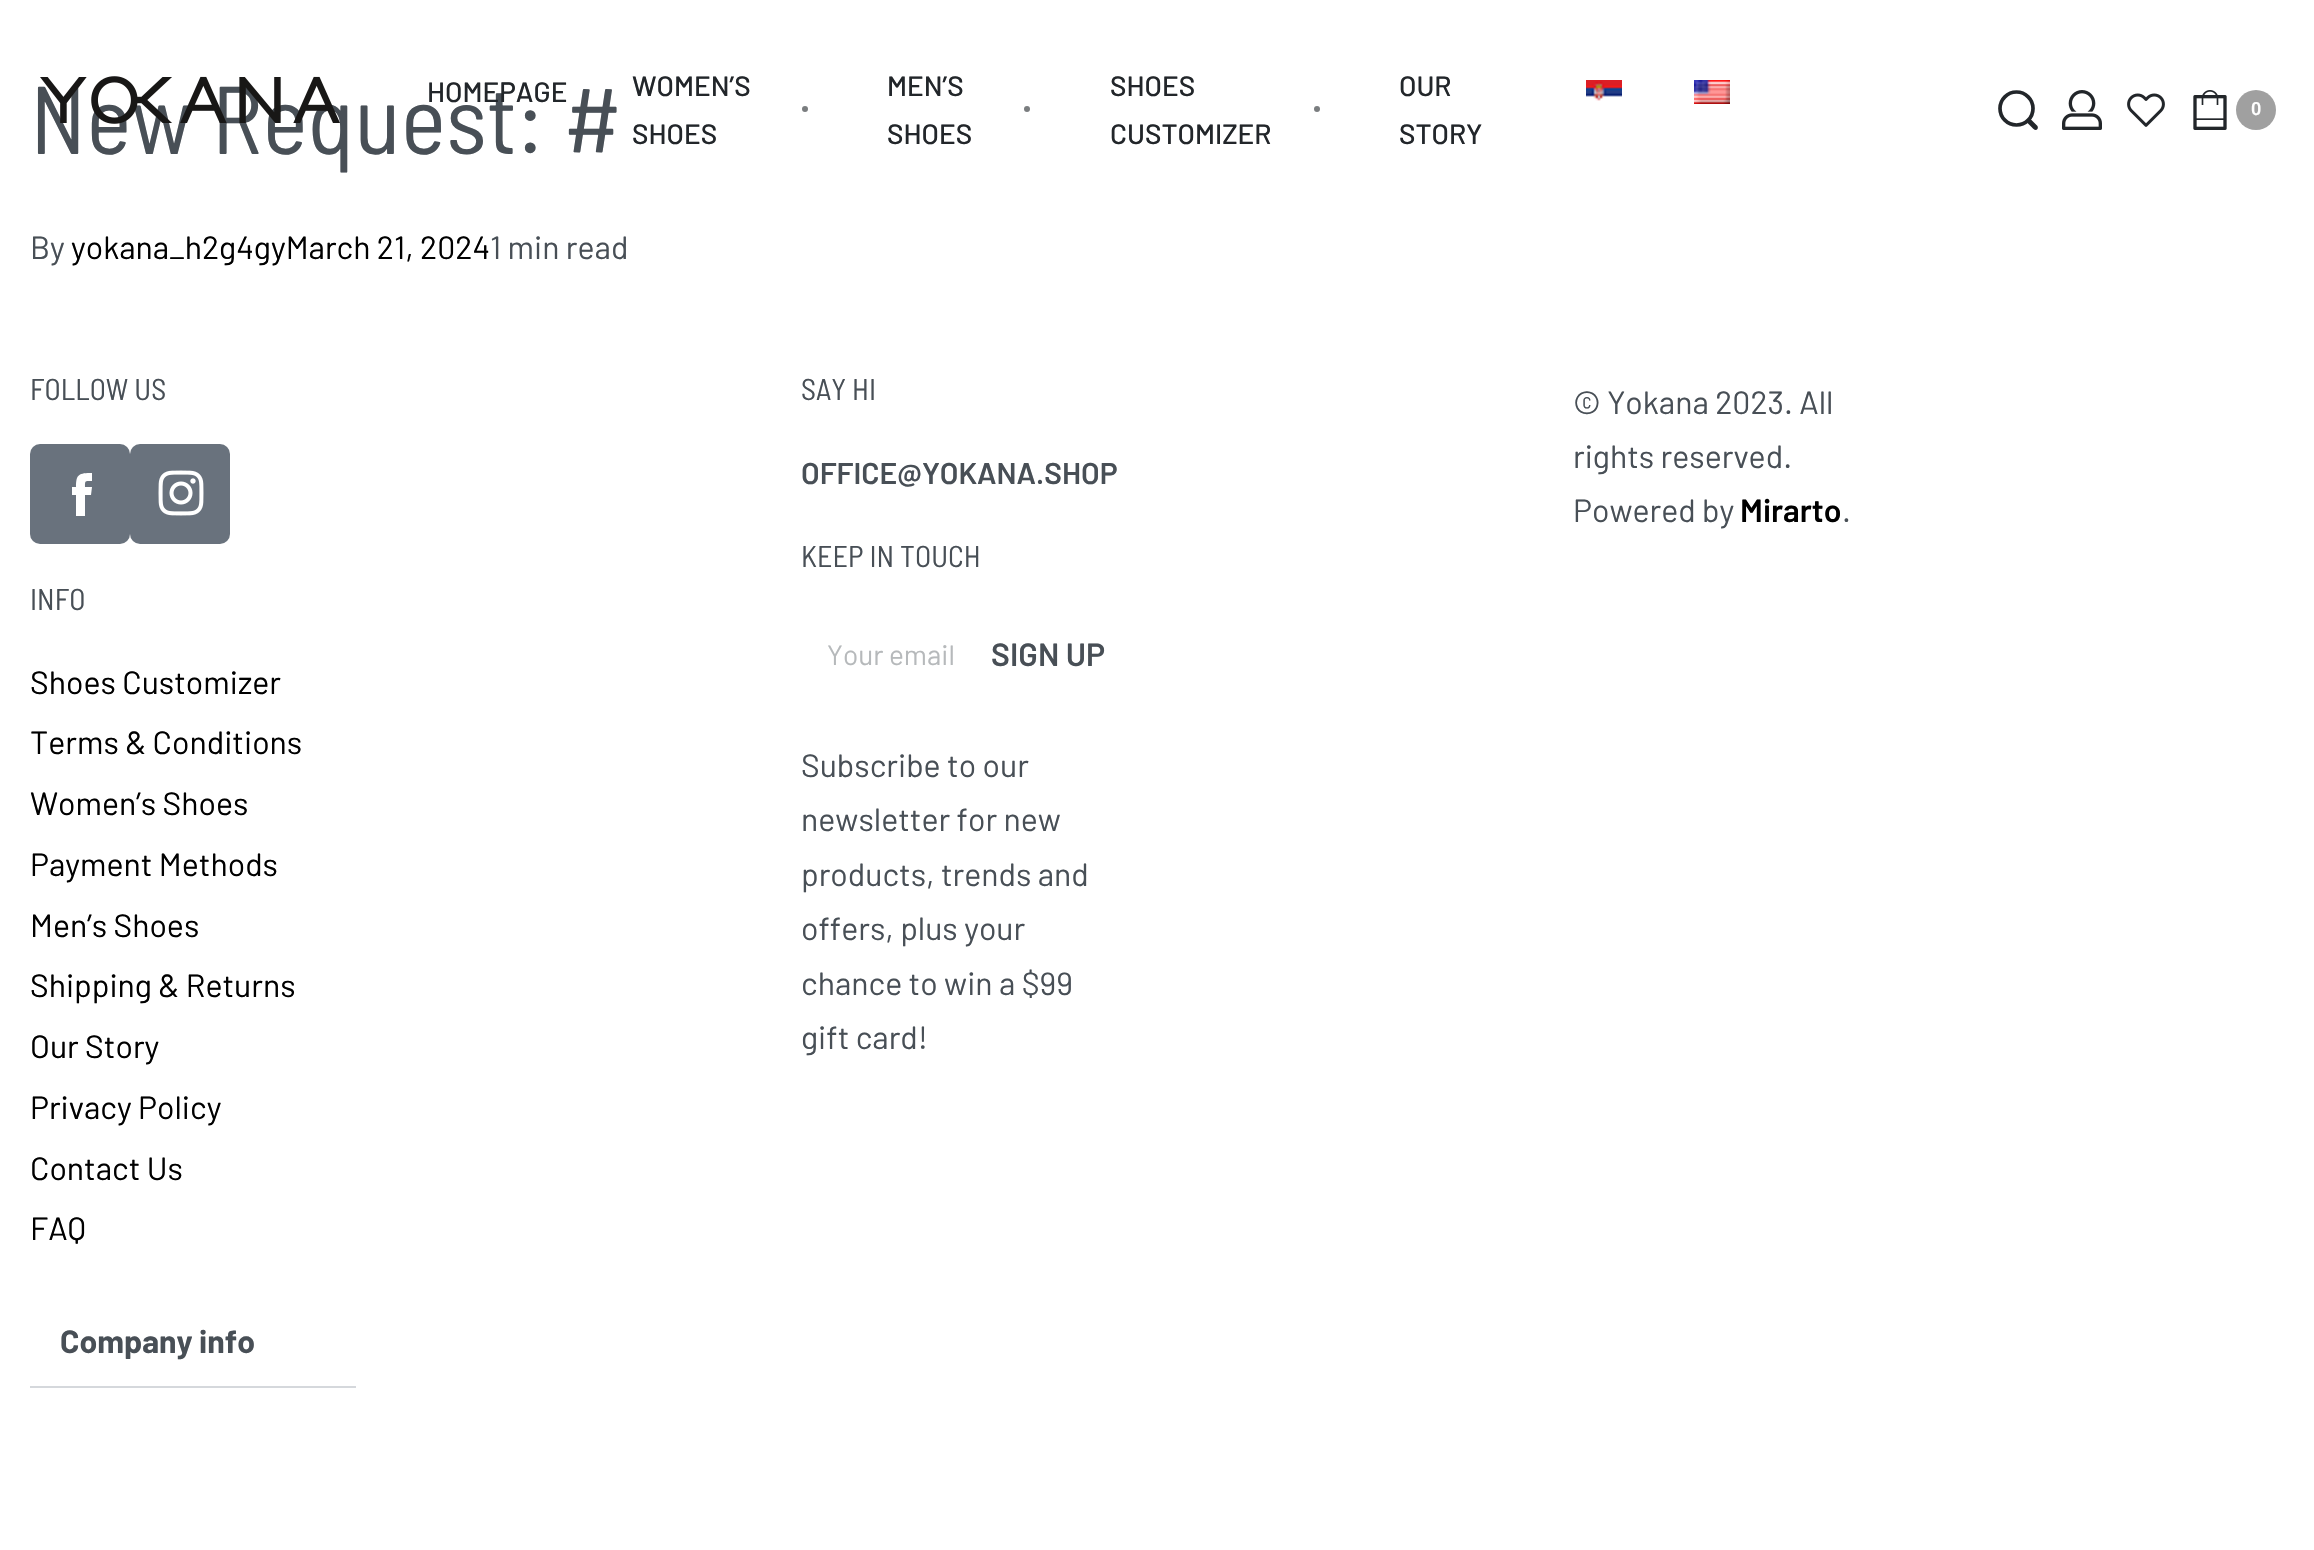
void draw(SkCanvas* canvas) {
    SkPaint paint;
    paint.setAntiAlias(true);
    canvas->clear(0xFFFFFFFF);
    SkFont font1(fontMgr->matchFamilyStyle("Barlow Semi Condensed", SkFontStyle::Normal()), 96);
    font1.setSubpixel(true);
    paint.setColor(0xFF484F56);
    canvas->drawString("New Request: #", 30, 154, font1, paint);
    SkFont font2(fontMgr->matchFamilyStyle("Barlow", SkFontStyle::Normal()), 32);
    font2.setSubpixel(true);
    canvas->drawString("By", 30, 259, font2, paint);
    paint.setColor(0xFF000000);
    canvas->drawString("yokana_h2g4gyMarch 21, 2024", 71, 259, font2, paint);
    paint.setColor(0xFF484F56);
    canvas->drawString("1 min read", 490, 259, font2, paint);
    canvas->drawImageRect(SkImages::DeferredFromEncodedData(SkData::MakeFromFileName("img1.png")), SkRect::MakeXYWH(40, 76, 300, 48), SkSamplingOptions());
    SkFont font3(fontMgr->matchFamilyStyle("Barlow", SkFontStyle(500, SkFontStyle::kNormal_Width, SkFontStyle::kUpright_Slant)), 28);
    font3.setSubpixel(true);
    paint.setColor(0xFF22262A);
    canvas->drawString("HOMEPAGE", 427, 102, font3, paint);
    canvas->drawString("WOMEN’S", 632, 96, font3, paint);
    canvas->drawString("SHOES", 632, 144, font3, paint);
    paint.setColor(0xFF7A7D7F);
    canvas->drawCircle(805, 109, 3, paint);
    paint.setColor(0xFF22262A);
    canvas->drawString("MEN’S", 887, 96, font3, paint);
    canvas->drawString("SHOES", 887, 144, font3, paint);
    paint.setColor(0xFF7A7D7F);
    canvas->drawCircle(1027, 109, 3, paint);
    paint.setColor(0xFF22262A);
    canvas->drawString("SHOES", 1110, 96, font3, paint);
    canvas->drawString("CUSTOMIZER", 1110, 144, font3, paint);
    paint.setColor(0xFF7A7D7F);
    canvas->drawCircle(1317, 109, 3, paint);
    paint.setColor(0xFF22262A);
    canvas->drawString("OUR", 1399, 96, font3, paint);
    canvas->drawString("STORY", 1399, 144, font3, paint);
    canvas->drawImageRect(SkImages::DeferredFromEncodedData(SkData::MakeFromFileName("img2.png")), SkRect::MakeXYWH(1586, 80, 36, 21), SkSamplingOptions());
    canvas->drawImageRect(SkImages::DeferredFromEncodedData(SkData::MakeFromFileName("img3.png")), SkRect::MakeXYWH(1694, 80, 36, 24), SkSamplingOptions());
    paint.setStyle(SkPaint::kStroke_Style);
    paint.setStrokeWidth(3.7f);
    canvas->drawCircle(2016.5f, 108.5f, 16.5f, paint);
    paint.setStyle(SkPaint::kFill_Style);
    canvas->drawPath(SkPathBuilder().moveTo(2031.5f, 120).lineTo(2037.5f, 126).cubicTo(2038, 127, 2038, 128, 2037.5f, 129).cubicTo(2035.5f, 131.5f, 2033, 128.5f, 2032, 127.5f).lineTo(2028, 123.5f).cubicTo(2025.5f, 121, 2029, 117.5f, 2031.5f, 120).close().detach(), paint);
    canvas->drawImageRect(SkImages::DeferredFromEncodedData(SkData::MakeFromFileName("img4.png")), SkRect::MakeXYWH(2062, 90, 40, 40), SkSamplingOptions());
    canvas->drawImageRect(SkImages::DeferredFromEncodedData(SkData::MakeFromFileName("img5.png")), SkRect::MakeXYWH(2127, 93, 38, 34), SkSamplingOptions());
    canvas->drawImageRect(SkImages::DeferredFromEncodedData(SkData::MakeFromFileName("img6.png")), SkRect::MakeXYWH(2193, 90, 34, 40), SkSamplingOptions());
    paint.setColor(0xFFA0A0A0);
    canvas->drawCircle(2256, 110, 20, paint);
    SkFont font4(fontMgr->matchFamilyStyle("Roboto", SkFontStyle(600, SkFontStyle::kNormal_Width, SkFontStyle::kUpright_Slant)), 18);
    font4.setSubpixel(true);
    paint.setColor(0xFFFFFFFF);
    canvas->drawString("0", 2251, 115, font4, paint);
    SkFont font5(fontMgr->matchFamilyStyle("Barlow Semi Condensed", SkFontStyle::Normal()), 30);
    font5.setSubpixel(true);
    paint.setColor(0xFF484F56);
    canvas->drawString("FOLLOW US", 30, 400, font5, paint);
    paint.setColor(0xFF69727D);
    canvas->drawRoundRect(SkRect::MakeXYWH(30, 444, 100, 100), 10, 10, paint);
    paint.setColor(0xFFFFFFFF);
    canvas->drawPath(SkPathBuilder().moveTo(92, 487).lineTo(85, 487).cubicTo(85, 480, 85, 481, 92, 481).lineTo(92, 473).cubicTo(79, 473, 76, 474, 76, 487).lineTo(72, 487).lineTo(72, 495).lineTo(76, 495).lineTo(76, 516).lineTo(85, 516).lineTo(85, 495).lineTo(91, 495).close().detach(), paint);
    paint.setColor(0xFF69727D);
    canvas->drawRoundRect(SkRect::MakeXYWH(130, 444, 100, 100), 10, 10, paint);
    canvas->drawImageRect(SkImages::DeferredFromEncodedData(SkData::MakeFromFileName("img7.png")), SkRect::MakeXYWH(158, 470, 46, 46), SkSamplingOptions());
    paint.setColor(0xFF484F56);
    canvas->drawString("INFO", 30, 610, font5, paint);
    paint.setColor(0xFF000000);
    canvas->drawString("Shoes Customizer", 30, 694, font2, paint);
    canvas->drawString("Terms & Conditions", 30, 754, font2, paint);
    canvas->drawString("Women’s Shoes", 30, 815, font2, paint);
    canvas->drawString("Payment Methods", 30, 876, font2, paint);
    canvas->drawString("Men’s Shoes", 30, 937, font2, paint);
    canvas->drawString("Shipping & Returns", 30, 997, font2, paint);
    canvas->drawString("Our Story", 30, 1058, font2, paint);
    canvas->drawString("Privacy Policy", 30, 1119, font2, paint);
    canvas->drawString("Contact Us", 30, 1180, font2, paint);
    canvas->drawString("FAQ", 30, 1240, font2, paint);
    paint.setColor(0xFFD5D8DC);
    canvas->drawRect(SkRect::MakeXYWH(30, 1386, 326, 2), paint);
    SkFont font6(fontMgr->matchFamilyStyle("Barlow", SkFontStyle::Bold()), 32);
    font6.setSubpixel(true);
    paint.setColor(0xFF484F56);
    canvas->drawString("Company info", 60, 1353, font6, paint);
    canvas->drawString("SAY HI", 801, 400, font5, paint);
    SkFont font7(fontMgr->matchFamilyStyle("Barlow", SkFontStyle(600, SkFontStyle::kNormal_Width, SkFontStyle::kUpright_Slant)), 30);
    font7.setSubpixel(true);
    canvas->drawString("OFFICE@YOKANA.SHOP", 801, 484, font7, paint);
    canvas->drawString("KEEP IN TOUCH", 801, 567, font5, paint);
    SkFont font8(fontMgr->matchFamilyStyle("Barlow", SkFontStyle::Normal()), 28);
    font8.setSubpixel(true);
    paint.setColor(0xFFB6B9BB);
    canvas->drawString("Your email", 827, 665, font8, paint);
    SkFont font9(fontMgr->matchFamilyStyle("Barlow", SkFontStyle(600, SkFontStyle::kNormal_Width, SkFontStyle::kUpright_Slant)), 32);
    font9.setSubpixel(true);
    paint.setColor(0xFF484F56);
    canvas->drawString("SIGN UP", 991, 666, font9, paint);
    canvas->drawString("Subscribe to our", 801, 777, font2, paint);
    canvas->drawString("newsletter for new", 801, 831, font2, paint);
    canvas->drawString("products, trends and", 801, 886, font2, paint);
    canvas->drawString("offers, plus your", 801, 940, font2, paint);
    canvas->drawString("chance to win a $99", 801, 995, font2, paint);
    canvas->drawString("gift card!", 801, 1049, font2, paint);
    canvas->drawString("© Yokana 2023. All", 1573, 414, font2, paint);
    canvas->drawString("rights reserved.", 1573, 468, font2, paint);
    canvas->drawString("Powered by", 1573, 522, font2, paint);
    paint.setColor(0xFF000000);
    canvas->drawString("Mirarto", 1740, 522, font9, paint);
    paint.setColor(0xFF484F56);
    canvas->drawString(".", 1842, 522, font2, paint);
}
